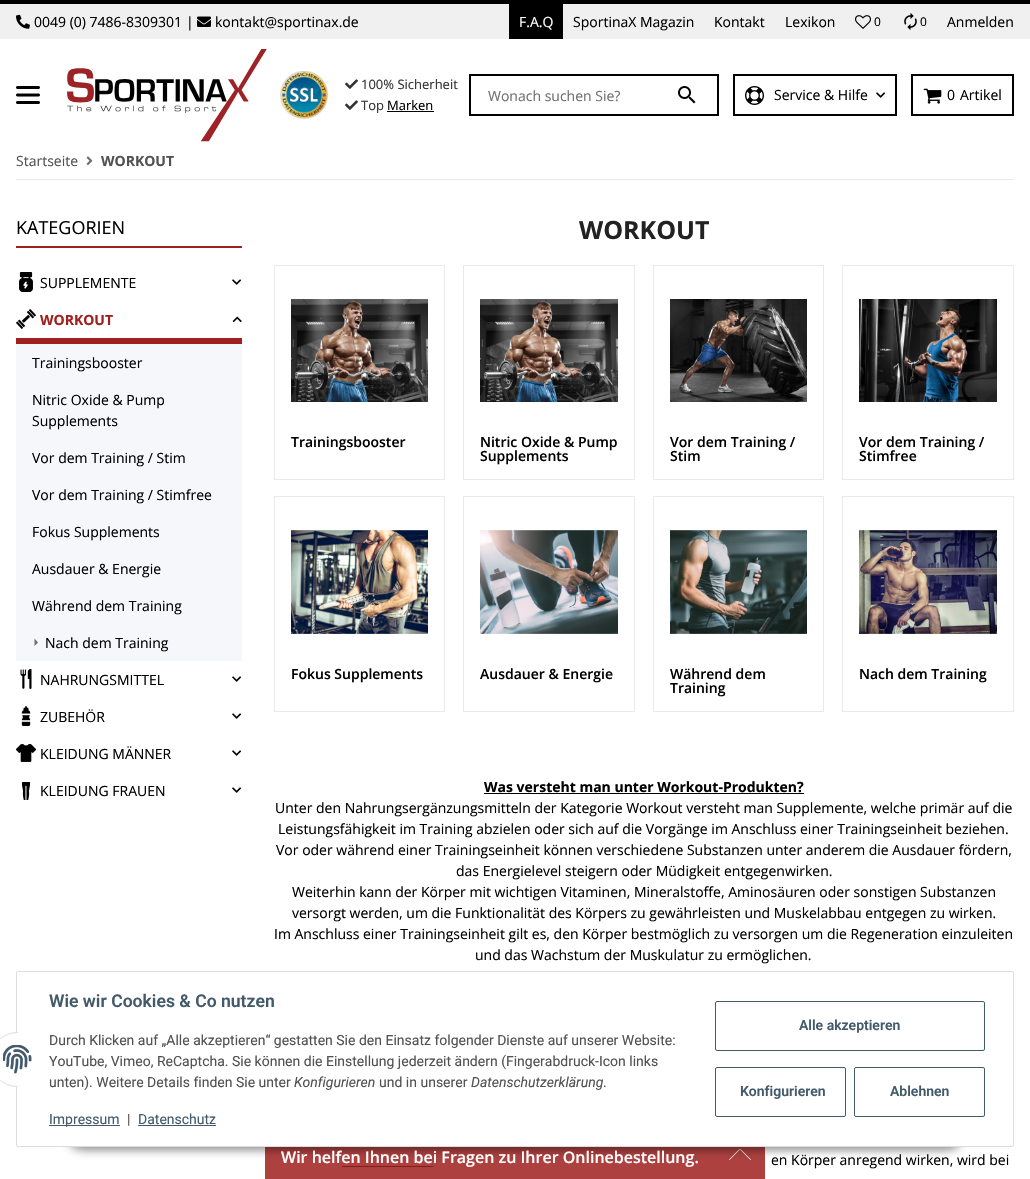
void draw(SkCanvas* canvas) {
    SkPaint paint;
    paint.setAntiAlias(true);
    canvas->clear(0xFFFFFFFF);
    paint.setColor(0xFFF0F0F0);
    canvas->drawRect(SkRect::MakeXYWH(0, 4, 1030, 35), paint);
    paint.setColor(0xFF000000);
    canvas->drawRect(SkRect::MakeXYWH(0, 0, 1030, 4), paint);
    canvas->drawImageRect(SkImages::DeferredFromEncodedData(SkData::MakeFromFileName("img1.png")), SkRect::MakeXYWH(16, 14, 14, 15), SkSamplingOptions());
    SkFont font1(fontMgr->matchFamilyStyle("Open Sans", SkFontStyle::Normal()), 14);
    font1.setSubpixel(true);
    canvas->drawString("0049 (0) 7486-8309301", 34, 27, font1, paint);
    canvas->drawString("|", 186, 27, font1, paint);
    canvas->drawImageRect(SkImages::DeferredFromEncodedData(SkData::MakeFromFileName("img2.png")), SkRect::MakeXYWH(197, 16, 14, 11), SkSamplingOptions());
    canvas->drawString("kontakt@sportinax.de", 215, 27, font1, paint);
    canvas->drawRect(SkRect::MakeXYWH(509, 4, 54, 35), paint);
    paint.setColor(0xFFFFFFFF);
    canvas->drawString("F.A.Q", 519, 27, font1, paint);
    paint.setColor(0xFF000000);
    canvas->drawString("SportinaX Magazin", 573, 27, font1, paint);
    canvas->drawString("Kontakt", 714, 27, font1, paint);
    canvas->drawString("Lexikon", 785, 27, font1, paint);
    canvas->drawImageRect(SkImages::DeferredFromEncodedData(SkData::MakeFromFileName("img3.png")), SkRect::MakeXYWH(855, 15, 16, 14), SkSamplingOptions());
    SkFont font2(fontMgr->matchFamilyStyle("Open Sans", SkFontStyle::Normal()), 12);
    font2.setSubpixel(true);
    canvas->drawString("0", 874, 26, font2, paint);
    canvas->drawImageRect(SkImages::DeferredFromEncodedData(SkData::MakeFromFileName("img4.png")), SkRect::MakeXYWH(904, 13, 13, 17), SkSamplingOptions());
    canvas->drawString("0", 920, 26, font2, paint);
    canvas->drawString("Anmelden", 947, 27, font1, paint);
    canvas->drawImageRect(SkImages::DeferredFromEncodedData(SkData::MakeFromFileName("img5.png")), SkRect::MakeXYWH(16, 86, 24, 18), SkSamplingOptions());
    canvas->drawImageRect(SkImages::DeferredFromEncodedData(SkData::MakeFromFileName("img6.png")), SkRect::MakeXYWH(67, 49, 200, 93), SkSamplingOptions());
    canvas->drawImageRect(SkImages::DeferredFromEncodedData(SkData::MakeFromFileName("img7.png")), SkRect::MakeXYWH(280, 71, 49, 48), SkSamplingOptions());
    canvas->drawImageRect(SkImages::DeferredFromEncodedData(SkData::MakeFromFileName("img8.png")), SkRect::MakeXYWH(345, 79, 13, 10), SkSamplingOptions());
    SkFont font3(fontMgr->matchFamilyStyle("Open Sans", SkFontStyle::Normal()), 13);
    font3.setSubpixel(true);
    paint.setColor(0xFF333333);
    canvas->drawString("100% Sicherheit", 361, 89, font3, paint);
    canvas->drawImageRect(SkImages::DeferredFromEncodedData(SkData::MakeFromFileName("img8.png")), SkRect::MakeXYWH(345, 100, 13, 10), SkSamplingOptions());
    canvas->drawString("Top", 361, 110, font3, paint);
    paint.setColor(0xFF000000);
    canvas->drawString("Marken", 387, 110, font3, paint);
    canvas->drawRect(SkRect::MakeXYWH(387, 111, 47, 1), paint);
    paint.setStyle(SkPaint::kStroke_Style);
    paint.setStrokeWidth(2);
    canvas->drawRect(SkRect::MakeXYWH(470, 75, 248, 40), paint);
    paint.setStyle(SkPaint::kFill_Style);
    paint.setColor(0xFF707070);
    canvas->drawString("Wonach suchen Sie?", 488, 101, font1, paint);
    canvas->drawImageRect(SkImages::DeferredFromEncodedData(SkData::MakeFromFileName("img9.png")), SkRect::MakeXYWH(678, 86, 18, 18), SkSamplingOptions());
    paint.setStyle(SkPaint::kStroke_Style);
    paint.setColor(0xFF000000);
    canvas->drawRect(SkRect::MakeXYWH(734, 75, 162, 40), paint);
    canvas->drawImageRect(SkImages::DeferredFromEncodedData(SkData::MakeFromFileName("img10.png")), SkRect::MakeXYWH(745, 86, 19, 19), SkSamplingOptions());
    paint.setStyle(SkPaint::kFill_Style);
    canvas->drawString("Service & Hilfe", 774, 100, font1, paint);
    canvas->drawImageRect(SkImages::DeferredFromEncodedData(SkData::MakeFromFileName("img11.png")), SkRect::MakeXYWH(876, 92, 9, 6), SkSamplingOptions());
    paint.setStyle(SkPaint::kStroke_Style);
    canvas->drawRect(SkRect::MakeXYWH(912, 75, 101, 40), paint);
    canvas->drawImageRect(SkImages::DeferredFromEncodedData(SkData::MakeFromFileName("img12.png")), SkRect::MakeXYWH(923, 88, 19, 16), SkSamplingOptions());
    paint.setStyle(SkPaint::kFill_Style);
    canvas->drawString("0", 947, 100, font1, paint);
    canvas->drawString("Artikel", 960, 100, font1, paint);
    paint.setColor(0xFF525252);
    canvas->drawString("Startseite", 16, 166, font1, paint);
    canvas->drawImageRect(SkImages::DeferredFromEncodedData(SkData::MakeFromFileName("img13.png")), SkRect::MakeXYWH(86, 156, 7, 9), SkSamplingOptions());
    SkFont font4(fontMgr->matchFamilyStyle("Open Sans", SkFontStyle::Bold()), 14);
    font4.setSubpixel(true);
    canvas->drawString("WORKOUT", 101, 166, font4, paint);
    paint.setColor(0xFFE9E9E9);
    canvas->drawRect(SkRect::MakeXYWH(16, 179, 998, 1), paint);
    paint.setColor(0xFF9F201E);
    canvas->drawRect(SkRect::MakeXYWH(16, 246, 226, 2), paint);
    SkFont font5(fontMgr->matchFamilyStyle("Open Sans", SkFontStyle::Normal()), 18);
    font5.setSubpixel(true);
    paint.setColor(0xFF000000);
    canvas->drawString("KATEGORIEN", 16, 234, font5, paint);
    canvas->drawImageRect(SkImages::DeferredFromEncodedData(SkData::MakeFromFileName("img14.png")), SkRect::MakeXYWH(19, 272, 14, 20), SkSamplingOptions());
    canvas->drawString("SUPPLEMENTE", 40, 288, font1, paint);
    canvas->drawImageRect(SkImages::DeferredFromEncodedData(SkData::MakeFromFileName("img11.png")), SkRect::MakeXYWH(232, 279, 9, 6), SkSamplingOptions());
    paint.setColor(0xFF9F201E);
    canvas->drawRect(SkRect::MakeXYWH(16, 338, 226, 6), paint);
    canvas->drawImageRect(SkImages::DeferredFromEncodedData(SkData::MakeFromFileName("img15.png")), SkRect::MakeXYWH(16, 309, 20, 20), SkSamplingOptions());
    canvas->drawString("WORKOUT", 40, 325, font4, paint);
    canvas->drawImageRect(SkImages::DeferredFromEncodedData(SkData::MakeFromFileName("img16.png")), SkRect::MakeXYWH(232, 316, 10, 6), SkSamplingOptions());
    paint.setColor(0xFFF5F7FA);
    canvas->drawRect(SkRect::MakeXYWH(16, 344, 226, 317), paint);
    paint.setColor(0xFF000000);
    canvas->drawString("Trainingsbooster", 32, 368, font1, paint);
    canvas->drawString("Nitric Oxide & Pump", 32, 405, font1, paint);
    canvas->drawString("Supplements", 32, 426, font1, paint);
    canvas->drawString("Vor dem Training / Stim", 32, 463, font1, paint);
    canvas->drawString("Vor dem Training / Stimfree", 32, 500, font1, paint);
    canvas->drawString("Fokus Supplements", 32, 537, font1, paint);
    canvas->drawString("Ausdauer & Energie", 32, 574, font1, paint);
    canvas->drawString("Während dem Training", 32, 611, font1, paint);
    paint.setColor(0xFF6F6E6E);
    canvas->drawPath(SkPathBuilder().moveTo(38, 642.5f).lineTo(34.5f, 646).lineTo(34.5f, 638.5f).close().detach(), paint);
    paint.setColor(0xFF000000);
    canvas->drawString("Nach dem Training", 45, 648, font1, paint);
    canvas->drawImageRect(SkImages::DeferredFromEncodedData(SkData::MakeFromFileName("img17.png")), SkRect::MakeXYWH(20, 669, 12, 20), SkSamplingOptions());
    canvas->drawString("NAHRUNGSMITTEL", 40, 685, font1, paint);
    canvas->drawImageRect(SkImages::DeferredFromEncodedData(SkData::MakeFromFileName("img11.png")), SkRect::MakeXYWH(232, 676, 9, 6), SkSamplingOptions());
    canvas->drawImageRect(SkImages::DeferredFromEncodedData(SkData::MakeFromFileName("img18.png")), SkRect::MakeXYWH(21, 706, 10, 20), SkSamplingOptions());
    canvas->drawString("ZUBEHÖR", 40, 722, font1, paint);
    canvas->drawImageRect(SkImages::DeferredFromEncodedData(SkData::MakeFromFileName("img11.png")), SkRect::MakeXYWH(232, 713, 9, 6), SkSamplingOptions());
    canvas->drawImageRect(SkImages::DeferredFromEncodedData(SkData::MakeFromFileName("img19.png")), SkRect::MakeXYWH(16, 744, 20, 18), SkSamplingOptions());
    canvas->drawString("KLEIDUNG MÄNNER", 40, 759, font1, paint);
    canvas->drawImageRect(SkImages::DeferredFromEncodedData(SkData::MakeFromFileName("img11.png")), SkRect::MakeXYWH(232, 750, 9, 6), SkSamplingOptions());
    canvas->drawImageRect(SkImages::DeferredFromEncodedData(SkData::MakeFromFileName("img20.png")), SkRect::MakeXYWH(21, 782, 10, 18), SkSamplingOptions());
    canvas->drawString("KLEIDUNG FRAUEN", 40, 796, font1, paint);
    canvas->drawImageRect(SkImages::DeferredFromEncodedData(SkData::MakeFromFileName("img11.png")), SkRect::MakeXYWH(232, 787, 9, 6), SkSamplingOptions());
    SkFont font6(fontMgr->matchFamilyStyle("Open Sans", SkFontStyle::Bold()), 25);
    font6.setSubpixel(true);
    paint.setColor(0xFF222222);
    canvas->drawString("WORKOUT", 579, 239, font6, paint);
    paint.setStyle(SkPaint::kStroke_Style);
    paint.setStrokeWidth(1);
    paint.setColor(0xFFE9E9E9);
    canvas->drawRect(SkRect::MakeXYWH(274.5f, 265.5f, 170, 214), paint);
    canvas->drawImageRect(SkImages::DeferredFromEncodedData(SkData::MakeFromFileName("img21.png")), SkRect::MakeXYWH(291, 299, 137, 103), SkSamplingOptions());
    SkFont font7(fontMgr->matchFamilyStyle("Open Sans", SkFontStyle(600, SkFontStyle::kNormal_Width, SkFontStyle::kUpright_Slant)), 14);
    font7.setSubpixel(true);
    paint.setStyle(SkPaint::kFill_Style);
    paint.setColor(0xFF000000);
    canvas->drawString("Trainingsbooster", 291, 447, font7, paint);
    paint.setStyle(SkPaint::kStroke_Style);
    paint.setColor(0xFFE9E9E9);
    canvas->drawRect(SkRect::MakeXYWH(463.5f, 265.5f, 171, 214), paint);
    canvas->drawImageRect(SkImages::DeferredFromEncodedData(SkData::MakeFromFileName("img22.png")), SkRect::MakeXYWH(480, 299, 138, 103), SkSamplingOptions());
    paint.setStyle(SkPaint::kFill_Style);
    paint.setColor(0xFF000000);
    canvas->drawString("Nitric Oxide & Pump", 480, 447, font7, paint);
    canvas->drawString("Supplements", 480, 461, font7, paint);
    paint.setStyle(SkPaint::kStroke_Style);
    paint.setColor(0xFFE9E9E9);
    canvas->drawRect(SkRect::MakeXYWH(653.5f, 265.5f, 170, 214), paint);
    canvas->drawImageRect(SkImages::DeferredFromEncodedData(SkData::MakeFromFileName("img23.png")), SkRect::MakeXYWH(670, 299, 137, 103), SkSamplingOptions());
    paint.setStyle(SkPaint::kFill_Style);
    paint.setColor(0xFF000000);
    canvas->drawString("Vor dem Training /", 670, 447, font7, paint);
    canvas->drawString("Stim", 670, 461, font7, paint);
    paint.setStyle(SkPaint::kStroke_Style);
    paint.setColor(0xFFE9E9E9);
    canvas->drawRect(SkRect::MakeXYWH(842.5f, 265.5f, 171, 214), paint);
    canvas->drawImageRect(SkImages::DeferredFromEncodedData(SkData::MakeFromFileName("img24.png")), SkRect::MakeXYWH(859, 299, 138, 103), SkSamplingOptions());
    paint.setStyle(SkPaint::kFill_Style);
    paint.setColor(0xFF000000);
    canvas->drawString("Vor dem Training /", 859, 447, font7, paint);
    canvas->drawString("Stimfree", 859, 461, font7, paint);
    paint.setStyle(SkPaint::kStroke_Style);
    paint.setColor(0xFFE9E9E9);
    canvas->drawRect(SkRect::MakeXYWH(274.5f, 496.5f, 170, 215), paint);
    canvas->drawImageRect(SkImages::DeferredFromEncodedData(SkData::MakeFromFileName("img25.png")), SkRect::MakeXYWH(291, 530, 137, 104), SkSamplingOptions());
    paint.setStyle(SkPaint::kFill_Style);
    paint.setColor(0xFF000000);
    canvas->drawString("Fokus Supplements", 291, 679, font7, paint);
    paint.setStyle(SkPaint::kStroke_Style);
    paint.setColor(0xFFE9E9E9);
    canvas->drawRect(SkRect::MakeXYWH(463.5f, 496.5f, 171, 215), paint);
    canvas->drawImageRect(SkImages::DeferredFromEncodedData(SkData::MakeFromFileName("img26.png")), SkRect::MakeXYWH(480, 530, 138, 104), SkSamplingOptions());
    paint.setStyle(SkPaint::kFill_Style);
    paint.setColor(0xFF000000);
    canvas->drawString("Ausdauer & Energie", 480, 679, font7, paint);
    paint.setStyle(SkPaint::kStroke_Style);
    paint.setColor(0xFFE9E9E9);
    canvas->drawRect(SkRect::MakeXYWH(653.5f, 496.5f, 170, 215), paint);
    canvas->drawImageRect(SkImages::DeferredFromEncodedData(SkData::MakeFromFileName("img27.png")), SkRect::MakeXYWH(670, 530, 137, 104), SkSamplingOptions());
    paint.setStyle(SkPaint::kFill_Style);
    paint.setColor(0xFF000000);
    canvas->drawString("Während dem", 670, 679, font7, paint);
    canvas->drawString("Training", 670, 693, font7, paint);
    paint.setStyle(SkPaint::kStroke_Style);
    paint.setColor(0xFFE9E9E9);
    canvas->drawRect(SkRect::MakeXYWH(842.5f, 496.5f, 171, 215), paint);
    canvas->drawImageRect(SkImages::DeferredFromEncodedData(SkData::MakeFromFileName("img28.png")), SkRect::MakeXYWH(859, 530, 138, 104), SkSamplingOptions());
    paint.setStyle(SkPaint::kFill_Style);
    paint.setColor(0xFF000000);
    canvas->drawString("Nach dem Training", 859, 679, font7, paint);
    canvas->drawString("Was versteht man unter Workout-Produkten?", 484, 792, font4, paint);
    canvas->drawRect(SkRect::MakeXYWH(484, 793, 320, 1), paint);
    canvas->drawString("Unter den Nahrungsergänzungsmitteln der Kategorie Workout versteht man Supplemente, welche primär auf die", 275, 813, font1, paint);
    canvas->drawString("Leistungsfähigkeit im Training abzielen oder sich auf die Vorgänge im Anschluss einer Trainingseinheit beziehen.", 278, 834, font1, paint);
    canvas->drawString("Vor oder während einer Trainingseinheit können verschiedene Substanzen unter anderem die Ausdauer fördern,", 276, 855, font1, paint);
    canvas->drawString("das Energielevel steigern oder Müdigkeit entgegenwirken.", 456, 876, font1, paint);
    canvas->drawString("Weiterhin kann der Körper mit wichtigen Vitaminen, Mineralstoffe, Aminosäuren oder sonstigen Substanzen", 292, 897, font1, paint);
    canvas->drawString("versorgt werden, um die Funktionalität des Körpers zu gewährleisten und Muskelabbau entgegen zu wirken.", 292, 918, font1, paint);
    canvas->drawString("Im Anschluss einer Trainingseinheit gilt es, den Körper bestmöglich zu versorgen um die Regeneration einzuleiten", 274, 939, font1, paint);
    canvas->drawString("und das Wachstum der Muskulatur zu ermöglichen.", 475, 960, font1, paint);
    canvas->drawString("en Körper anregend wirken, wird bei", 771, 1165, font1, paint);
    canvas->drawRect(SkRect::MakeXYWH(342, 1166, 91, 1), paint);
    paint.setColor(0xD99F201E);
    canvas->drawRect(SkRect::MakeXYWH(265, 1147, 500, 32), paint);
    paint.setColor(0xFFFFFFFF);
    canvas->drawPath(SkPathBuilder().moveTo(740.5f, 1149).lineTo(751, 1159.5f).lineTo(750.5f, 1160).lineTo(740, 1149.5f).close().moveTo(729, 1159.5f).lineTo(739.5f, 1149).lineTo(740, 1149.5f).lineTo(729.5f, 1160).close().detach(), paint);
    paint.setColor(0x73000000);
    paint.setMaskFilter(SkMaskFilter::MakeBlur(kNormal_SkBlurStyle, 5));
    canvas->drawRoundRect(SkRect::MakeXYWH(67, 1118, 896, 32), 16, 16, paint);
    paint.setMaskFilter(nullptr);
    paint.setColor(0xFFFFFFFF);
    canvas->drawRoundRect(SkRect::MakeXYWH(16.5f, 971.5f, 997, 175), 1.5f, 1.5f, paint);
    paint.setStyle(SkPaint::kStroke_Style);
    paint.setColor(0xFFDDDDDD);
    canvas->drawRoundRect(SkRect::MakeXYWH(16.5f, 971.5f, 997, 175), 1.5f, 1.5f, paint);
    paint.setStyle(SkPaint::kFill_Style);
    paint.setColor(0xFFFFFFFF);
    canvas->drawCircle(17.5f, 1059.5f, 27, paint);
    paint.setStyle(SkPaint::kStroke_Style);
    paint.setColor(0xFFDDDDDD);
    canvas->drawCircle(17.5f, 1059.5f, 27, paint);
    paint.setStyle(SkPaint::kFill_Style);
    paint.setColor(0xFFFFFFFF);
    canvas->drawRect(SkRect::MakeXYWH(18, 1032, 27, 55), paint);
    canvas->drawImageRect(SkImages::DeferredFromEncodedData(SkData::MakeFromFileName("img29.png")), SkRect::MakeXYWH(3, 1045, 29, 29), SkSamplingOptions());
    SkFont font8(fontMgr->matchFamilyStyle("Roboto", SkFontStyle(600, SkFontStyle::kNormal_Width, SkFontStyle::kUpright_Slant)), 17.6f);
    font8.setSubpixel(true);
    paint.setColor(0xFF435A6B);
    canvas->drawString("Wie wir Cookies & Co nutzen", 49, 1007, font8, paint);
    SkFont font9(fontMgr->matchFamilyStyle("Roboto", SkFontStyle::Normal()), 14);
    font9.setSubpixel(true);
    paint.setColor(0xFF525252);
    canvas->drawString("Durch Klicken auf „Alle akzeptieren“ gestatten Sie den Einsatz folgender Dienste auf unserer Website:", 49, 1045, font9, paint);
    canvas->drawString("YouTube, Vimeo, ReCaptcha. Sie können die Einstellung jederzeit ändern (Fingerabdruck-Icon links", 49, 1066, font9, paint);
    canvas->drawString("unten). Weitere Details finden Sie unter", 49, 1087, font9, paint);
    SkFont font10(fontMgr->matchFamilyStyle("Roboto", SkFontStyle::Italic()), 14);
    font10.setSubpixel(true);
    canvas->drawString("Konfigurieren", 294, 1087, font10, paint);
    canvas->drawString("und in unserer", 379, 1087, font9, paint);
    canvas->drawString("Datenschutzerklärung", 471, 1087, font10, paint);
    canvas->drawString(".", 603, 1087, font9, paint);
    paint.setColor(0xFF435A6B);
    canvas->drawRect(SkRect::MakeXYWH(49, 1125, 71, 1), paint);
    canvas->drawString("Impressum", 49, 1124, font9, paint);
    paint.setColor(0xFF525252);
    canvas->drawString("|", 127, 1124, font9, paint);
    paint.setColor(0xFF435A6B);
    canvas->drawString("Datenschutz", 138, 1124, font9, paint);
    canvas->drawRect(SkRect::MakeXYWH(138, 1125, 78, 1), paint);
    paint.setStyle(SkPaint::kStroke_Style);
    canvas->drawRoundRect(SkRect::MakeXYWH(715.5f, 1001.5f, 269, 49), 1.5f, 1.5f, paint);
    SkFont font11(fontMgr->matchFamilyStyle("Roboto", SkFontStyle(600, SkFontStyle::kNormal_Width, SkFontStyle::kUpright_Slant)), 14);
    font11.setSubpixel(true);
    paint.setStyle(SkPaint::kFill_Style);
    canvas->drawString("Alle akzeptieren", 799, 1030, font11, paint);
    paint.setStyle(SkPaint::kStroke_Style);
    canvas->drawRoundRect(SkRect::MakeXYWH(715.5f, 1067.5f, 130, 49), 1.5f, 1.5f, paint);
    paint.setStyle(SkPaint::kFill_Style);
    canvas->drawString("Konfigurieren", 740, 1096, font11, paint);
    paint.setStyle(SkPaint::kStroke_Style);
    canvas->drawRoundRect(SkRect::MakeXYWH(854.5f, 1067.5f, 130, 49), 1.5f, 1.5f, paint);
    paint.setStyle(SkPaint::kFill_Style);
    canvas->drawString("Ablehnen", 890, 1096, font11, paint);
    SkFont font12(fontMgr->matchFamilyStyle("Open Sans", SkFontStyle(600, SkFontStyle::kNormal_Width, SkFontStyle::kUpright_Slant)), 16);
    font12.setSubpixel(true);
    paint.setColor(0xFFFFFFFF);
    canvas->drawString("Wir helfen Ihnen bei Fragen zu Ihrer Onlinebestellung.", 281, 1163, font12, paint);
}
